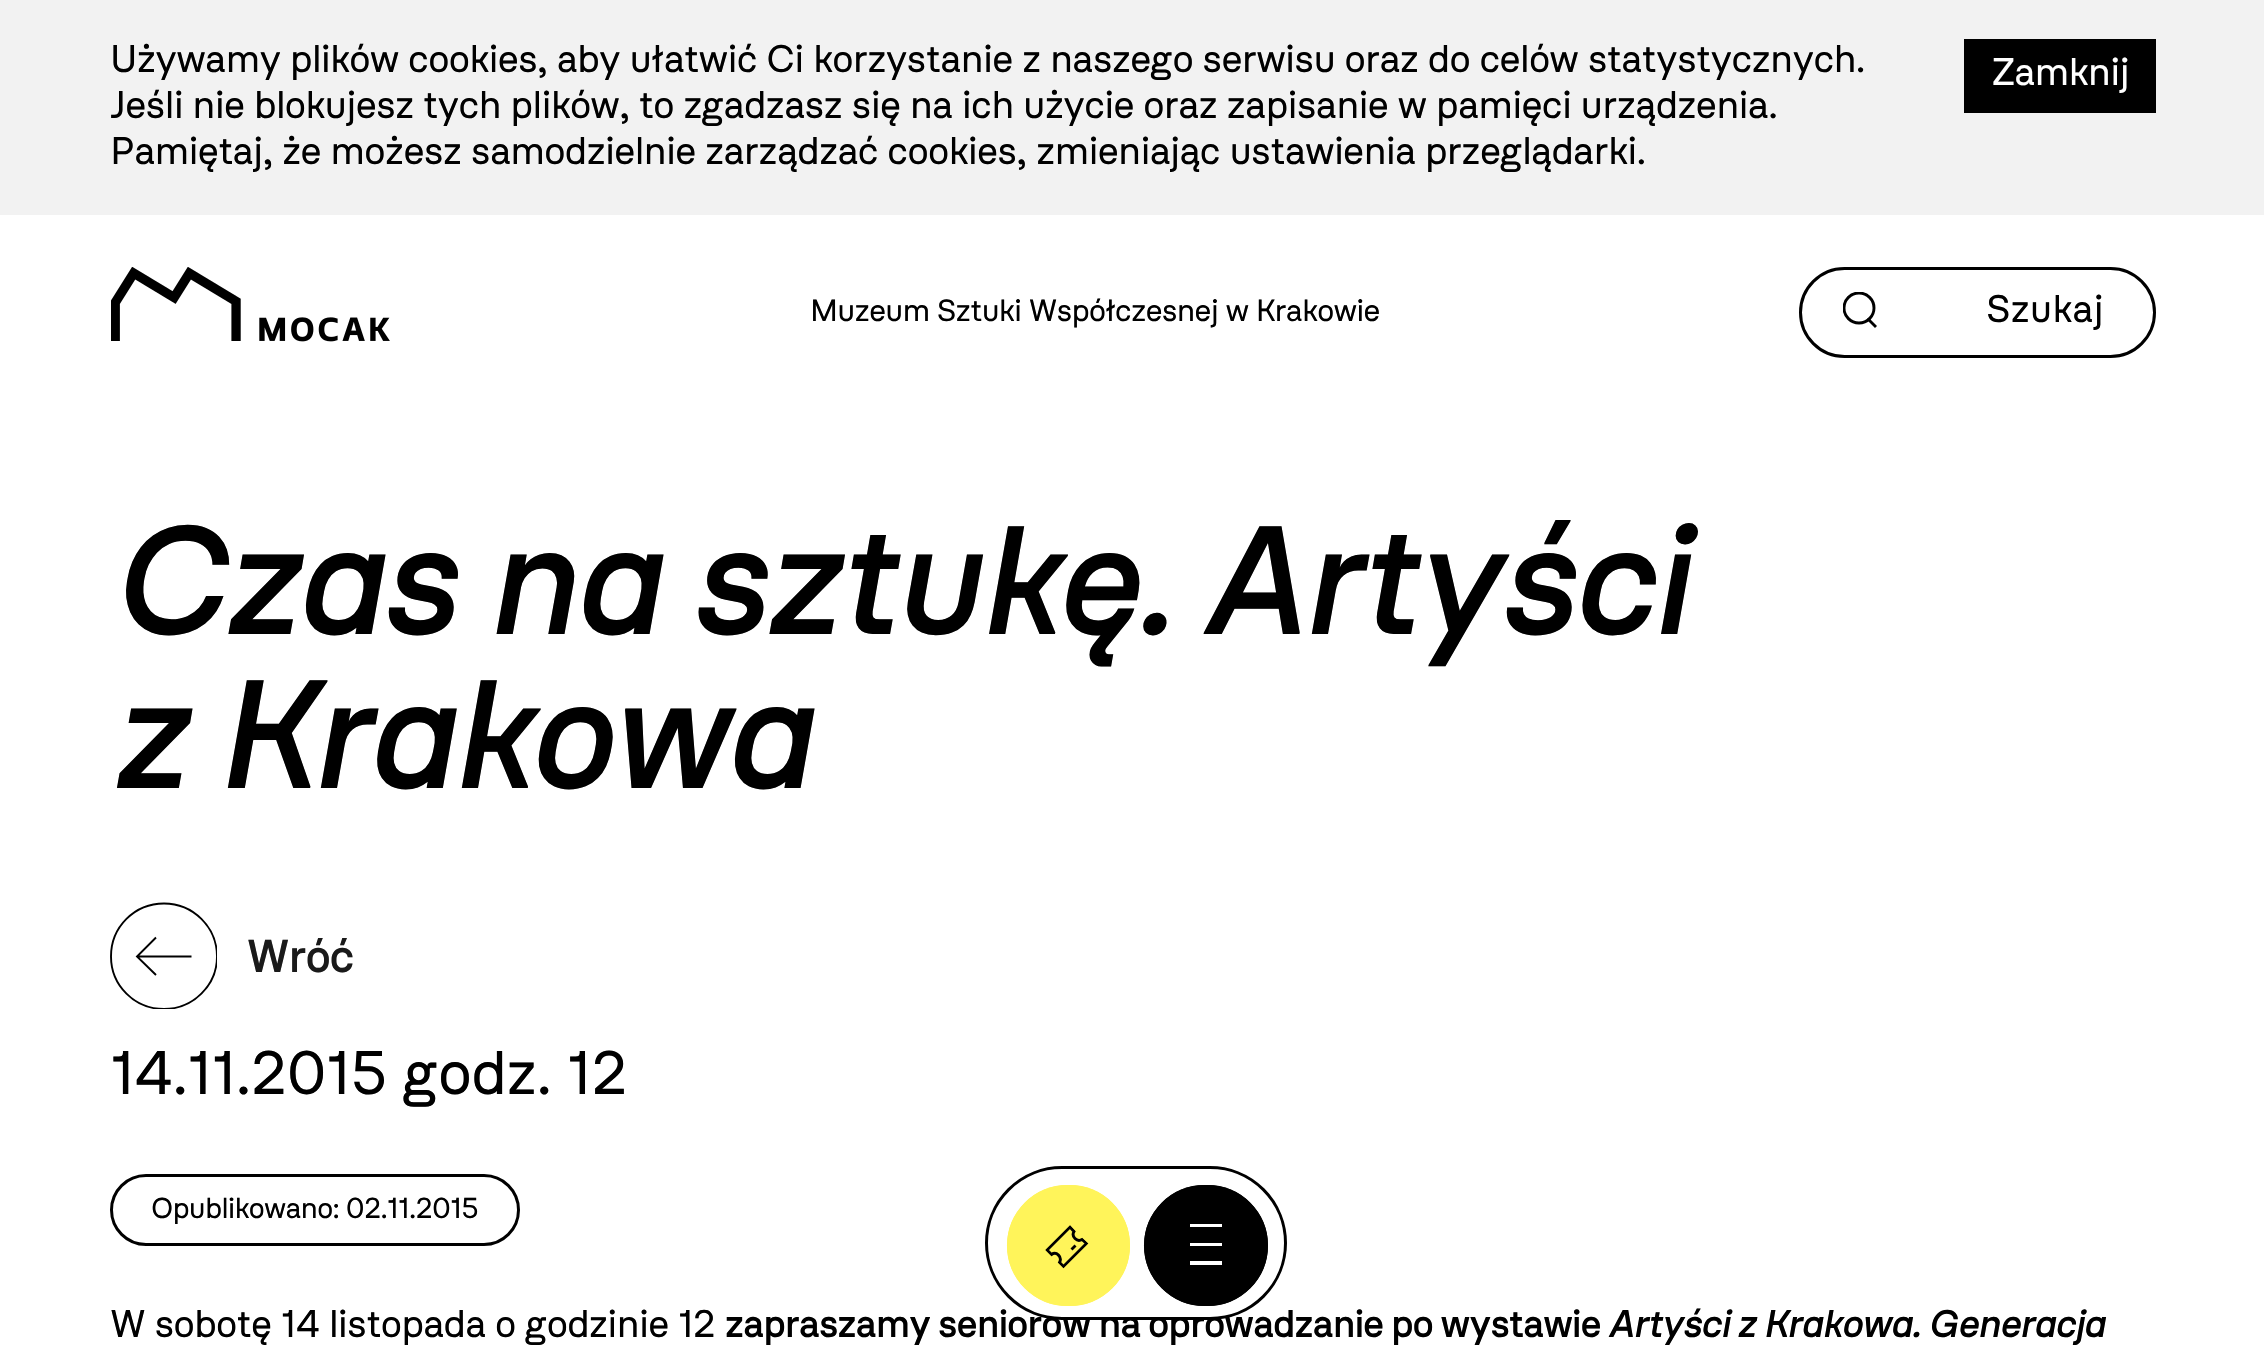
void draw(SkCanvas* canvas) {
    SkPaint paint;
    paint.setAntiAlias(true);
    auto spacedText = [&](const char* s, float x, float y, const SkFont& font, const SkPaint& ink, float letter, float word) {
        std::vector<SkGlyphID> glyphs(font.countText(s, strlen(s), SkTextEncoding::kUTF8));
        std::vector<float> xs(glyphs.size());
        font.textToGlyphs(s, strlen(s), SkTextEncoding::kUTF8, glyphs);
        font.getXPos(glyphs, xs, x);
        float extra = 0;
        for (size_t i = 0; i < glyphs.size(); i++) {
            xs[i] += extra;
            extra += letter + word * (glyphs[i] == font.unicharToGlyph(' '));
        }
        canvas->drawTextBlob(SkTextBlob::MakeFromPosHGlyphs(glyphs, xs, y, font), 0, 0, ink);
    };
    canvas->clear(0xFFFFFFFF);
    paint.setColor(0xFFF2F2F2);
    canvas->drawRect(SkRect::MakeXYWH(0, 0, 2264, 215), paint);
    SkFont font1(fontMgr->matchFamilyStyle("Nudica", SkFontStyle::Normal()), 38.5f);
    font1.setSubpixel(true);
    paint.setColor(0xFF000000);
    spacedText("Używamy plików cookies, aby ułatwić Ci korzystanie z naszego serwisu oraz do celów statystycznych.", 110, 72, font1, paint, -0.77f, 0);
    spacedText("Jeśli nie blokujesz tych plików, to zgadzasz się na ich użycie oraz zapisanie w pamięci urządzenia.", 110, 118, font1, paint, -0.77f, 0);
    spacedText("Pamiętaj, że możesz samodzielnie zarządzać cookies, zmieniając ustawienia przeglądarki.", 110, 164, font1, paint, -0.77f, 0);
    canvas->drawRect(SkRect::MakeXYWH(1964, 39, 192, 74), paint);
    paint.setColor(0xFFFFFFFF);
    spacedText("Zamknij", 1992, 85, font1, paint, -0.77f, 0);
    canvas->drawImageRect(SkImages::DeferredFromEncodedData(SkData::MakeFromFileName("img1.png")), SkRect::MakeXYWH(111, 267, 279, 75), SkSamplingOptions());
    SkFont font2(fontMgr->matchFamilyStyle("Nudica", SkFontStyle::Normal()), 30.75f);
    font2.setSubpixel(true);
    paint.setColor(0xFF000000);
    spacedText("Muzeum Sztuki Współczesnej w Krakowie", 810, 321, font2, paint, -0.77f, 0);
    canvas->save();
    canvas->clipRect(SkRect::MakeXYWH(1843, 292, 35, 38));
    paint.setStyle(SkPaint::kStroke_Style);
    paint.setStrokeWidth(2.9f);
    canvas->drawCircle(1859, 308, 15, paint);
    canvas->restore();
    canvas->drawPath(SkPathBuilder().moveTo(1867.5f, 318.5f).lineTo(1876, 327).detach(), paint);
    paint.setStrokeWidth(3);
    canvas->drawRoundRect(SkRect::MakeXYWH(1800.5f, 268.5f, 354, 88), 44, 44, paint);
    paint.setStyle(SkPaint::kFill_Style);
    canvas->drawString("Szukaj", 1986, 322, font1, paint);
    SkFont font3(fontMgr->matchFamilyStyle("Nudica", SkFontStyle(500, SkFontStyle::kNormal_Width, SkFontStyle::kItalic_Slant)), 154);
    font3.setSubpixel(true);
    spacedText("Czas na sztukę. Artyści", 110, 634, font3, paint, -3.1f, 0);
    spacedText("z Krakowa", 110, 788, font3, paint, -3.1f, 0);
    canvas->save();
    canvas->clipRect(SkRect::MakeXYWH(110, 902, 107, 107));
    paint.setStyle(SkPaint::kStroke_Style);
    paint.setStrokeWidth(1.9f);
    canvas->drawPath(SkPathBuilder().moveTo(164, 1009).cubicTo(134.5f, 1009, 111, 985.5f, 111, 956.5f).cubicTo(111, 927, 134.5f, 903.5f, 164, 903.5f).cubicTo(193, 903.5f, 217, 927, 217, 956.5f).cubicTo(217, 985.5f, 193, 1009, 164, 1009).close().detach(), paint);
    canvas->restore();
    canvas->drawPath(SkPathBuilder().moveTo(191.5f, 956.5f).lineTo(137, 956.5f).moveTo(156, 975).lineTo(137, 956.5f).lineTo(156, 937.5f).detach(), paint);
    SkFont font4(fontMgr->matchFamilyStyle("Nudica", SkFontStyle(500, SkFontStyle::kNormal_Width, SkFontStyle::kUpright_Slant)), 46);
    font4.setSubpixel(true);
    paint.setStyle(SkPaint::kFill_Style);
    paint.setColor(0xFF1A1A1A);
    spacedText("Wróć", 247, 972, font4, paint, -0.77f, 0);
    SkFont font5(fontMgr->matchFamilyStyle("Nudica", SkFontStyle::Normal()), 61.5f);
    font5.setSubpixel(true);
    paint.setColor(0xFF000000);
    spacedText("14.11.2015 godz. 12", 110, 1094, font5, paint, -0.77f, 0);
    paint.setStyle(SkPaint::kStroke_Style);
    paint.setStrokeWidth(3);
    canvas->drawRoundRect(SkRect::MakeXYWH(111.5f, 1175.5f, 407, 69), 34.5f, 34.5f, paint);
    SkFont font6(fontMgr->matchFamilyStyle("Nudica", SkFontStyle::Normal()), 28.9f);
    font6.setSubpixel(true);
    paint.setStyle(SkPaint::kFill_Style);
    spacedText("Opublikowano: 02.11.2015", 151, 1218, font6, paint, -0.77f, 0);
    spacedText("W sobotę 14 listopada o godzinie 12", 110, 1337, font1, paint, -0.77f, 0);
    SkFont font7(fontMgr->matchFamilyStyle("Nudica", SkFontStyle(500, SkFontStyle::kNormal_Width, SkFontStyle::kUpright_Slant)), 38.5f);
    font7.setSubpixel(true);
    spacedText("zapraszamy seniorów na oprowadzanie po wystawie", 725, 1337, font7, paint, -0.77f, 0);
    SkFont font8(fontMgr->matchFamilyStyle("Nudica", SkFontStyle(500, SkFontStyle::kNormal_Width, SkFontStyle::kItalic_Slant)), 38.5f);
    font8.setSubpixel(true);
    spacedText("Artyści z Krakowa. Generacja", 1608, 1337, font8, paint, -0.77f, 0);
    paint.setColor(0xFFFFFFFF);
    canvas->drawRoundRect(SkRect::MakeXYWH(986.5f, 1167.5f, 299, 151), 75.5f, 75.5f, paint);
    paint.setStyle(SkPaint::kStroke_Style);
    paint.setColor(0xFF000000);
    canvas->drawRoundRect(SkRect::MakeXYWH(986.5f, 1167.5f, 299, 151), 75.5f, 75.5f, paint);
    paint.setStyle(SkPaint::kFill_Style);
    paint.setColor(0xFFFFF45A);
    canvas->drawRoundRect(SkRect::MakeXYWH(1007, 1185, 123, 121), 60.5f, 60.5f, paint);
    canvas->save();
    canvas->clipPath(SkPathBuilder().moveTo(1045, 1250).lineTo(1070, 1225).lineTo(1088.5f, 1243.5f).lineTo(1063.5f, 1268.5f).close().detach(), true);
    paint.setStyle(SkPaint::kStroke_Style);
    paint.setStrokeWidth(2.9f);
    paint.setColor(0xFF000000);
    canvas->drawPath(SkPathBuilder().moveTo(1047, 1250).lineTo(1070, 1227).lineTo(1074, 1231.5f).cubicTo(1071, 1236.5f, 1077, 1242.5f, 1082, 1239.5f).lineTo(1086.5f, 1243.5f).lineTo(1063.5f, 1266.5f).lineTo(1059.5f, 1262.5f).cubicTo(1062.5f, 1257, 1056.5f, 1251, 1051.5f, 1254.5f).close().detach(), paint);
    canvas->restore();
    canvas->drawPath(SkPathBuilder().moveTo(1071.5f, 1249.5f).lineTo(1075.5f, 1245.5f).detach(), paint);
    paint.setStrokeWidth(6);
    paint.setColor(0xFFFFF45A);
    canvas->drawRoundRect(SkRect::MakeXYWH(1010, 1188, 117, 115), 57.5f, 57.5f, paint);
    paint.setStyle(SkPaint::kFill_Style);
    paint.setColor(0xFF000000);
    canvas->drawRoundRect(SkRect::MakeXYWH(1144, 1185, 124, 121), 60.5f, 60.5f, paint);
    paint.setColor(0xFFFFFFFF);
    canvas->drawRect(SkRect::MakeXYWH(1190, 1261, 32, 4), paint);
    canvas->drawRect(SkRect::MakeXYWH(1190, 1243, 32, 3), paint);
    canvas->drawRect(SkRect::MakeXYWH(1190, 1224, 32, 3), paint);
    paint.setStyle(SkPaint::kStroke_Style);
    paint.setColor(0xFF000000);
    canvas->drawRoundRect(SkRect::MakeXYWH(1147, 1188, 118, 115), 57.5f, 57.5f, paint);
}
